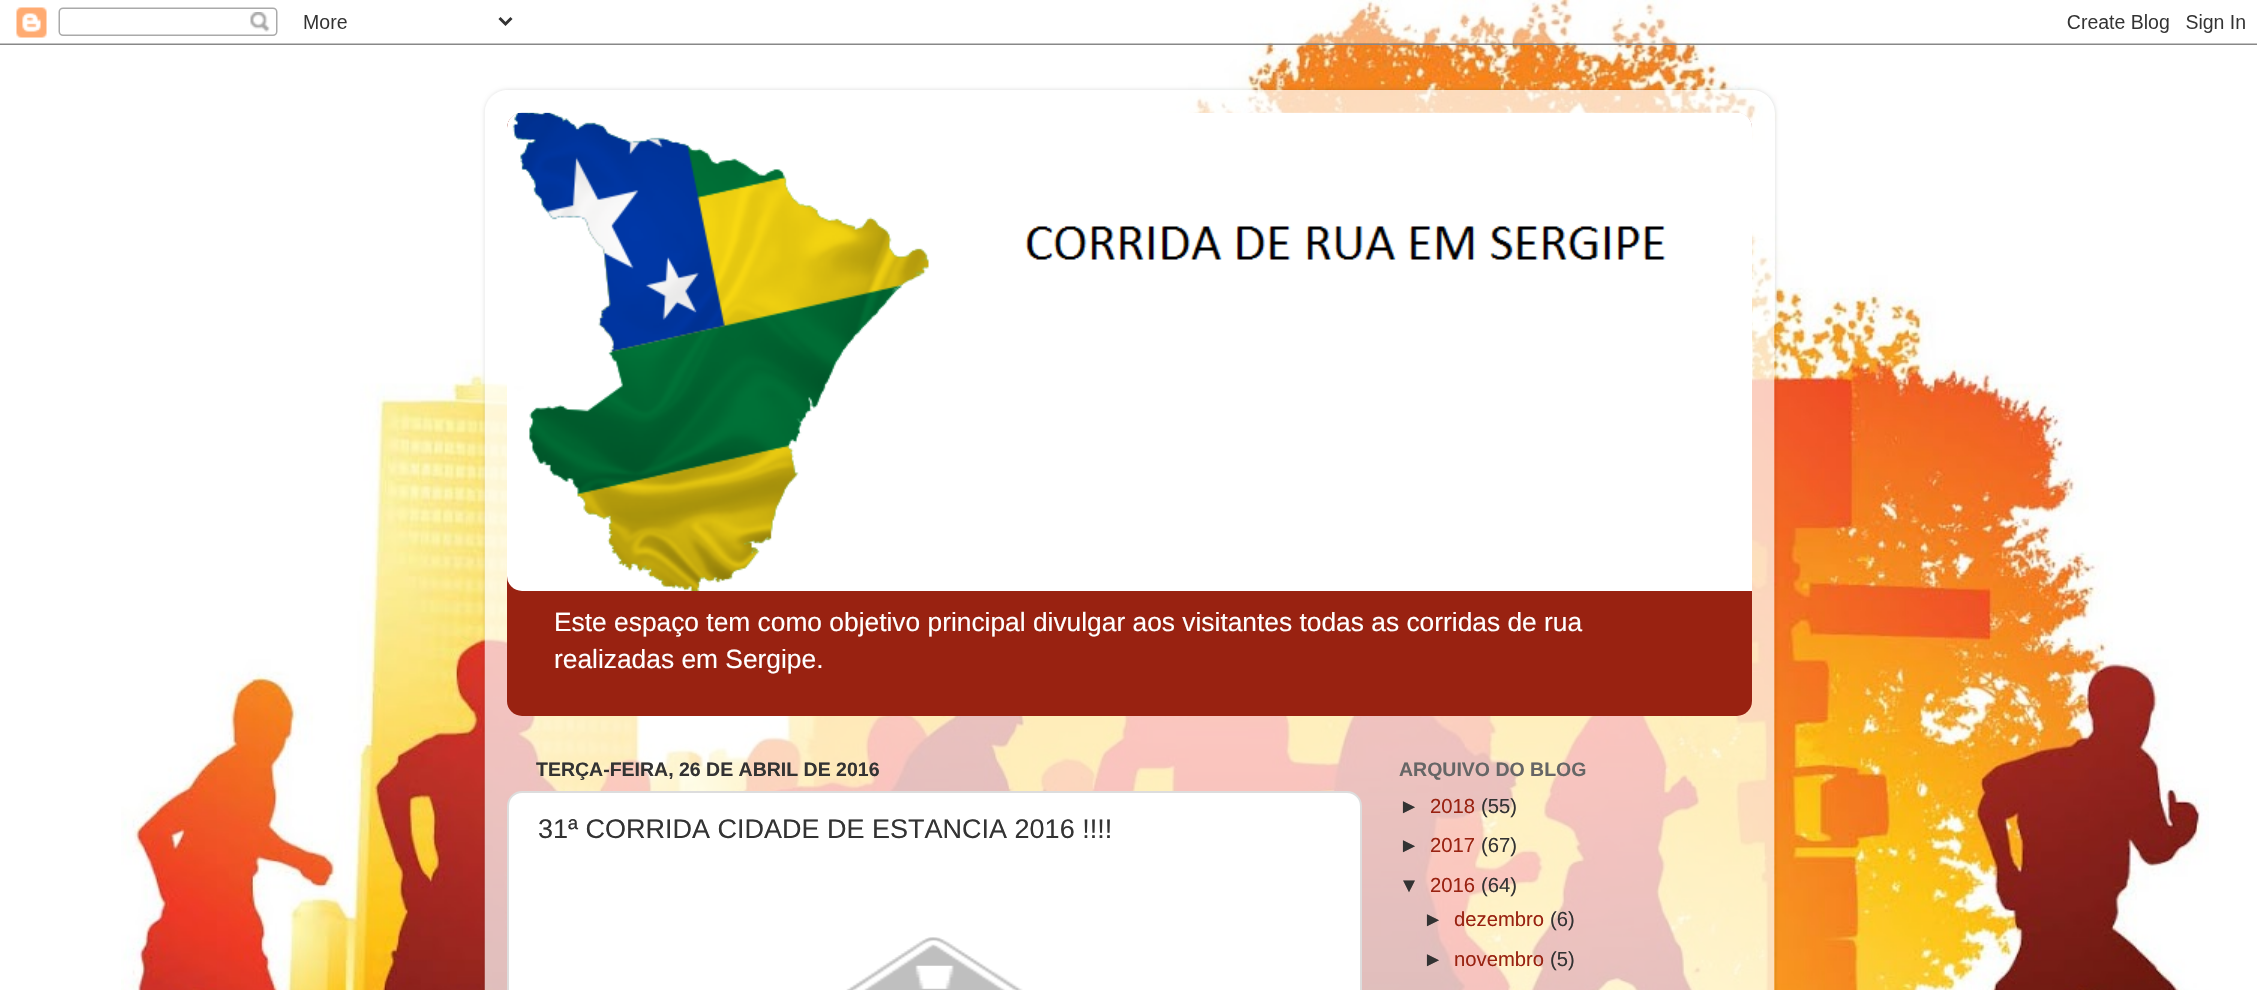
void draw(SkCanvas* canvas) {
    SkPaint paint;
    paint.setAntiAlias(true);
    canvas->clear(0xFFFFFFFF);
    canvas->drawImageRect(SkImages::DeferredFromEncodedData(SkData::MakeFromFileName("img1.png")), SkRect::MakeXYWH(121, 0, 2088, 990), SkSamplingOptions());
    canvas->drawImageRect(SkImages::DeferredFromEncodedData(SkData::MakeFromFileName("img2.png")), SkRect::MakeXYWH(0, 0, 2257, 45), SkSamplingOptions());
    canvas->save();
    canvas->clipPath(SkPathBuilder(SkPathFillType::kEvenOdd).moveTo(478, 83).lineTo(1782, 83).lineTo(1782, 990).lineTo(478, 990).close().moveTo(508, 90).lineTo(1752, 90).cubicTo(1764.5f, 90, 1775, 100.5f, 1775, 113).lineTo(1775, 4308).cubicTo(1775, 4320.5f, 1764.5f, 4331, 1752, 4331).lineTo(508, 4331).cubicTo(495.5f, 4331, 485, 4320.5f, 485, 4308).lineTo(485, 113).cubicTo(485, 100.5f, 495.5f, 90, 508, 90).close().detach(), true);
    paint.setColor(0x26000000);
    paint.setMaskFilter(SkMaskFilter::MakeBlur(kNormal_SkBlurStyle, 2));
    canvas->drawRoundRect(SkRect::MakeXYWH(485, 90, 1290, 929), 23, 23, paint);
    paint.setMaskFilter(nullptr);
    canvas->restore();
    canvas->drawImageRect(SkImages::DeferredFromEncodedData(SkData::MakeFromFileName("img3.png")), SkRect::MakeXYWH(484, 90, 1291, 900), SkSamplingOptions());
    paint.setColor(0xFF992211);
    canvas->drawRoundRect(SkRect::MakeXYWH(507, 113, 1245, 603), 15, 15, paint);
    canvas->drawImageRect(SkImages::DeferredFromEncodedData(SkData::MakeFromFileName("img4.png")), SkRect::MakeXYWH(507, 113, 1245, 15), SkSamplingOptions());
    canvas->drawImageRect(SkImages::DeferredFromEncodedData(SkData::MakeFromFileName("img5.png")), SkRect::MakeXYWH(507, 112, 1245, 479), SkSamplingOptions());
    SkFont font1(fontMgr->matchFamilyStyle("Liberation Sans", SkFontStyle::Normal()), 26.35f);
    font1.setSubpixel(true);
    paint.setColor(0xFFFFFFFF);
    canvas->drawString("Este espaço tem como objetivo principal divulgar aos visitantes todas as corridas de rua", 554, 631, font1, paint);
    canvas->drawString("realizadas em Sergipe.", 554, 668, font1, paint);
    SkFont font2(fontMgr->matchFamilyStyle("Liberation Sans", SkFontStyle::Bold()), 19.5f);
    font2.setSubpixel(true);
    paint.setColor(0xFF333333);
    canvas->drawString("TERÇA-FEIRA, 26 DE ABRIL DE 2016", 536, 776, font2, paint);
    paint.setColor(0xFFFFFFFF);
    canvas->drawRoundRect(SkRect::MakeXYWH(508, 792, 853, 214), 14, 14, paint);
    paint.setStyle(SkPaint::kStroke_Style);
    paint.setStrokeWidth(2);
    paint.setColor(0xFFDDDDDD);
    canvas->drawRoundRect(SkRect::MakeXYWH(508, 792, 853, 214), 14, 14, paint);
    SkFont font3(fontMgr->matchFamilyStyle("Liberation Sans", SkFontStyle::Normal()), 27);
    font3.setSubpixel(true);
    paint.setStyle(SkPaint::kFill_Style);
    paint.setColor(0xFF333333);
    canvas->drawString("31ª CORRIDA CIDADE DE ESTANCIA 2016 !!!!", 538, 838, font3, paint);
    canvas->drawImageRect(SkImages::DeferredFromEncodedData(SkData::MakeFromFileName("img6.png")), SkRect::MakeXYWH(846, 937, 177, 53), SkSamplingOptions());
    paint.setColor(0xFF666666);
    canvas->drawString("ARQUIVO DO BLOG", 1399, 776, font2, paint);
    SkFont font4(fontMgr->matchFamilyStyle("Liberation Sans", SkFontStyle::Normal()), 20.25f);
    font4.setSubpixel(true);
    paint.setColor(0xFF333333);
    canvas->drawString("►", 1399, 813, font4, paint);
    paint.setColor(0xFF992211);
    canvas->drawString("2018", 1430, 813, font4, paint);
    paint.setColor(0xFF333333);
    canvas->drawString("(55)", 1481, 813, font4, paint);
    canvas->drawString("►", 1399, 852, font4, paint);
    paint.setColor(0xFF992211);
    canvas->drawString("2017", 1430, 852, font4, paint);
    paint.setColor(0xFF333333);
    canvas->drawString("(67)", 1481, 852, font4, paint);
    canvas->drawString("▼", 1399, 892, font4, paint);
    paint.setColor(0xFF992211);
    canvas->drawString("2016", 1430, 892, font4, paint);
    paint.setColor(0xFF333333);
    canvas->drawString("(64)", 1481, 892, font4, paint);
    canvas->drawString("►", 1423, 926, font4, paint);
    paint.setColor(0xFF992211);
    canvas->drawString("dezembro", 1454, 926, font4, paint);
    paint.setColor(0xFF333333);
    canvas->drawString("(6)", 1550, 926, font4, paint);
    canvas->drawString("►", 1423, 966, font4, paint);
    paint.setColor(0xFF992211);
    canvas->drawString("novembro", 1454, 966, font4, paint);
    paint.setColor(0xFF333333);
    canvas->drawString("(5)", 1550, 966, font4, paint);
}
